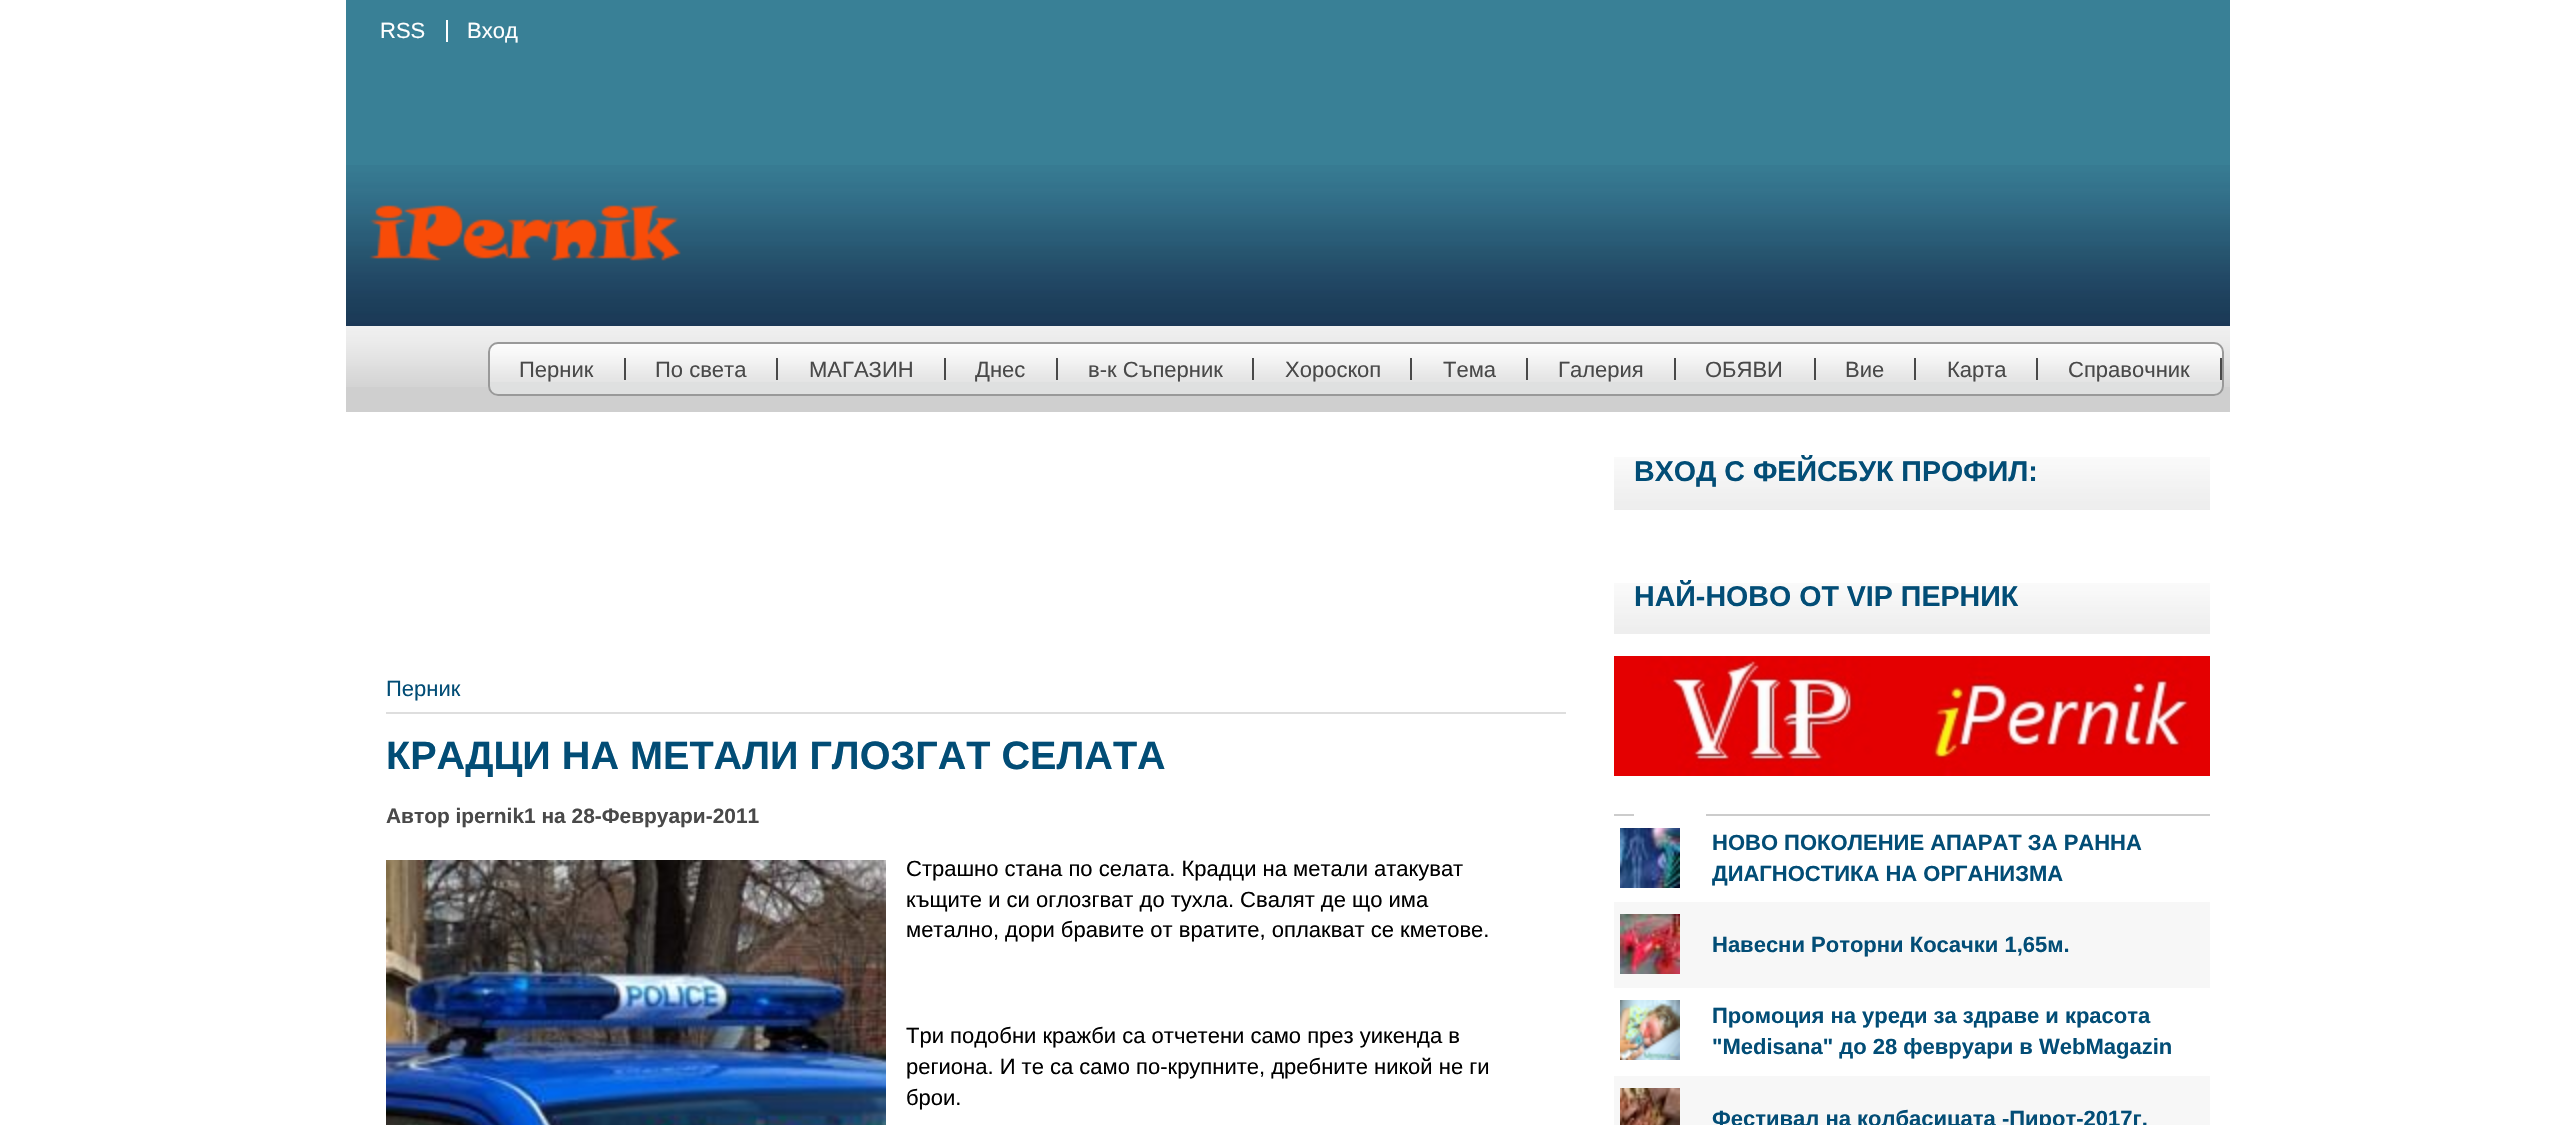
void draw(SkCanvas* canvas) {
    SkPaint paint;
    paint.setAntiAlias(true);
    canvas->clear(0xFFFFFFFF);
    paint.setColor(0xFF398096);
    canvas->drawRect(SkRect::MakeXYWH(346, 0, 1884, 165), paint);
    canvas->drawImageRect(SkImages::DeferredFromEncodedData(SkData::MakeFromFileName("img1.png")), SkRect::MakeXYWH(346, 165, 1884, 161), SkSamplingOptions());
    paint.setColor(0xFFFFFFFF);
    canvas->drawRect(SkRect::MakeXYWH(446, 20, 2, 22), paint);
    SkFont font1(fontMgr->matchFamilyStyle("Liberation Sans", SkFontStyle::Normal()), 22);
    font1.setSubpixel(true);
    canvas->drawString("RSS", 380, 38, font1, paint);
    canvas->drawString("Вход", 467, 38, font1, paint);
    canvas->drawImageRect(SkImages::DeferredFromEncodedData(SkData::MakeFromFileName("img2.png")), SkRect::MakeXYWH(369, 205, 312, 56), SkSamplingOptions());
    paint.setColor(0xFFCFCFCF);
    canvas->drawRect(SkRect::MakeXYWH(346, 387, 1884, 25), paint);
    canvas->drawImageRect(SkImages::DeferredFromEncodedData(SkData::MakeFromFileName("img3.png")), SkRect::MakeXYWH(346, 326, 1884, 61), SkSamplingOptions());
    paint.setColor(0xFFDFE0E0);
    canvas->drawRoundRect(SkRect::MakeXYWH(488, 342, 1736, 54), 10, 10, paint);
    canvas->drawImageRect(SkImages::DeferredFromEncodedData(SkData::MakeFromFileName("img4.png")), SkRect::MakeXYWH(488, 344, 1736, 38), SkSamplingOptions());
    paint.setStyle(SkPaint::kStroke_Style);
    paint.setStrokeWidth(2);
    paint.setColor(0xFF999999);
    canvas->drawRoundRect(SkRect::MakeXYWH(489, 343, 1734, 52), 9, 9, paint);
    paint.setStyle(SkPaint::kFill_Style);
    paint.setColor(0xFF494949);
    canvas->drawRect(SkRect::MakeXYWH(624, 358, 2, 22), paint);
    canvas->drawString("Перник", 519, 377, font1, paint);
    canvas->drawRect(SkRect::MakeXYWH(776, 358, 2, 22), paint);
    canvas->drawString("По света", 655, 377, font1, paint);
    canvas->drawRect(SkRect::MakeXYWH(944, 358, 2, 22), paint);
    canvas->drawString("МАГАЗИН", 809, 377, font1, paint);
    canvas->drawRect(SkRect::MakeXYWH(1056, 358, 2, 22), paint);
    canvas->drawString("Днес", 975, 377, font1, paint);
    canvas->drawRect(SkRect::MakeXYWH(1252, 358, 2, 22), paint);
    canvas->drawString("в-к Съперник", 1088, 377, font1, paint);
    canvas->drawRect(SkRect::MakeXYWH(1410, 358, 2, 22), paint);
    canvas->drawString("Хороскоп", 1285, 377, font1, paint);
    canvas->drawRect(SkRect::MakeXYWH(1526, 358, 2, 22), paint);
    canvas->drawString("Тема", 1443, 377, font1, paint);
    canvas->drawRect(SkRect::MakeXYWH(1674, 358, 2, 22), paint);
    canvas->drawString("Галерия", 1558, 377, font1, paint);
    canvas->drawRect(SkRect::MakeXYWH(1814, 358, 2, 22), paint);
    canvas->drawString("ОБЯВИ", 1705, 377, font1, paint);
    canvas->drawRect(SkRect::MakeXYWH(1914, 358, 2, 22), paint);
    canvas->drawString("Вие", 1845, 377, font1, paint);
    canvas->drawRect(SkRect::MakeXYWH(2036, 358, 2, 22), paint);
    canvas->drawString("Карта", 1947, 377, font1, paint);
    canvas->drawRect(SkRect::MakeXYWH(2220, 358, 2, 22), paint);
    canvas->drawString("Справочник", 2068, 377, font1, paint);
    paint.setColor(0xFFDEDEDE);
    canvas->drawRect(SkRect::MakeXYWH(386, 712, 1180, 2), paint);
    paint.setColor(0xFF024D76);
    canvas->drawString("Перник", 386, 696, font1, paint);
    SkFont font2(fontMgr->matchFamilyStyle("Liberation Sans", SkFontStyle::Bold()), 39.6f);
    font2.setSubpixel(true);
    canvas->drawString("КРАДЦИ НА МЕТАЛИ ГЛОЗГАТ СЕЛАТА", 386, 769, font2, paint);
    SkFont font3(fontMgr->matchFamilyStyle("Liberation Sans", SkFontStyle::Bold()), 20.9f);
    font3.setSubpixel(true);
    paint.setColor(0xFF494949);
    canvas->drawString("Автор ipernik1 на 28-Февруари-2011", 386, 823, font3, paint);
    canvas->drawImageRect(SkImages::DeferredFromEncodedData(SkData::MakeFromFileName("img5.png")), SkRect::MakeXYWH(386, 860, 500, 265), SkSamplingOptions());
    paint.setColor(0xFF000000);
    canvas->drawString("Страшно стана по селата. Крадци на метали атакуват", 906, 876, font1, paint);
    canvas->drawString("къщите и си оглозгват до тухла. Свалят де що има", 906, 907, font1, paint);
    canvas->drawString("метално, дори бравите от вратите, оплакват се кметове.", 906, 937, font1, paint);
    canvas->drawString("Три подобни кражби са отчетени само през уикенда в", 906, 1043, font1, paint);
    canvas->drawString("региона. И те са само по-крупните, дребните никой не ги", 906, 1074, font1, paint);
    canvas->drawString("брои.", 906, 1105, font1, paint);
    canvas->drawImageRect(SkImages::DeferredFromEncodedData(SkData::MakeFromFileName("img6.png")), SkRect::MakeXYWH(1614, 457, 596, 53), SkSamplingOptions());
    SkFont font4(fontMgr->matchFamilyStyle("Liberation Sans", SkFontStyle::Bold()), 28.6f);
    font4.setSubpixel(true);
    paint.setColor(0xFF024D76);
    canvas->drawString("ВХОД С ФЕЙСБУК ПРОФИЛ:", 1634, 481, font4, paint);
    canvas->drawImageRect(SkImages::DeferredFromEncodedData(SkData::MakeFromFileName("img7.png")), SkRect::MakeXYWH(1614, 583, 596, 51), SkSamplingOptions());
    canvas->drawString("НАЙ-НОВО ОТ VIP ПЕРНИК", 1634, 606, font4, paint);
    canvas->drawImageRect(SkImages::DeferredFromEncodedData(SkData::MakeFromFileName("img8.png")), SkRect::MakeXYWH(1614, 656, 596, 120), SkSamplingOptions());
    paint.setColor(0xFFCCCCCC);
    canvas->drawRect(SkRect::MakeXYWH(1614, 814, 20, 2), paint);
    canvas->drawRect(SkRect::MakeXYWH(1706, 814, 504, 2), paint);
    canvas->drawImageRect(SkImages::DeferredFromEncodedData(SkData::MakeFromFileName("img9.png")), SkRect::MakeXYWH(1620, 828, 60, 60), SkSamplingOptions());
    SkFont font5(fontMgr->matchFamilyStyle("Liberation Sans", SkFontStyle::Bold()), 22);
    font5.setSubpixel(true);
    paint.setColor(0xFF024D76);
    canvas->drawString("НОВО ПОКОЛЕНИЕ АПАРАТ ЗА РАННА", 1712, 850, font5, paint);
    canvas->drawString("ДИАГНОСТИКА НА ОРГАНИЗМА", 1712, 881, font5, paint);
    paint.setColor(0xFFF7F7F7);
    canvas->drawRect(SkRect::MakeXYWH(1614, 902, 596, 86), paint);
    canvas->drawImageRect(SkImages::DeferredFromEncodedData(SkData::MakeFromFileName("img10.png")), SkRect::MakeXYWH(1620, 914, 60, 60), SkSamplingOptions());
    paint.setColor(0xFF024D76);
    canvas->drawString("Навесни Роторни Косачки 1,65м.", 1712, 952, font5, paint);
    canvas->drawImageRect(SkImages::DeferredFromEncodedData(SkData::MakeFromFileName("img11.png")), SkRect::MakeXYWH(1620, 1000, 60, 60), SkSamplingOptions());
    canvas->drawString("Промоция на уреди за здраве и красота", 1712, 1023, font5, paint);
    canvas->drawString("\"Medisana\" до 28 февруари в WebMagazin", 1712, 1054, font5, paint);
    paint.setColor(0xFFF7F7F7);
    canvas->drawRect(SkRect::MakeXYWH(1614, 1076, 596, 49), paint);
    canvas->drawImageRect(SkImages::DeferredFromEncodedData(SkData::MakeFromFileName("img12.png")), SkRect::MakeXYWH(1620, 1088, 60, 37), SkSamplingOptions());
    paint.setColor(0xFF024D76);
    canvas->drawString("Фестивал на колбасицата -Пирот-2017г.", 1712, 1126, font5, paint);
}
